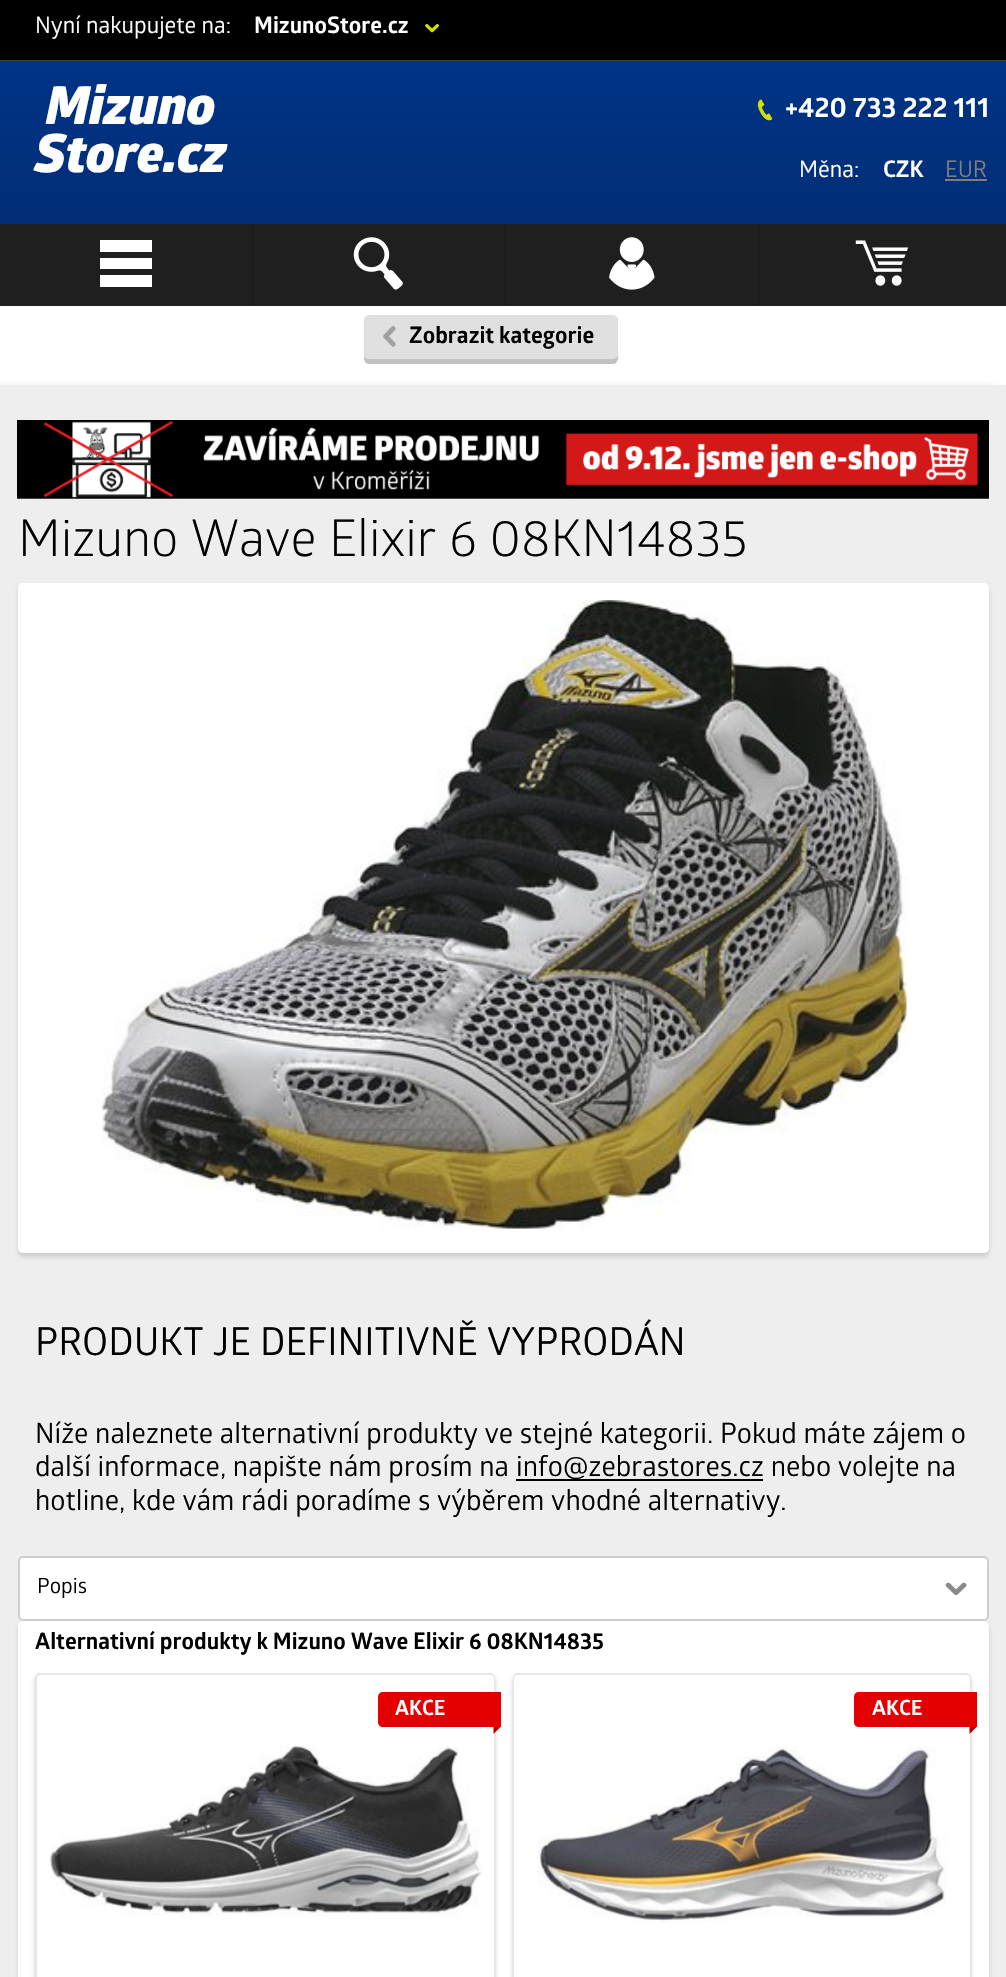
void draw(SkCanvas* canvas) {
    SkPaint paint;
    paint.setAntiAlias(true);
    canvas->clear(0xFFFFFFFF);
    paint.setColor(0xFF000000);
    canvas->drawRect(SkRect::MakeXYWH(0, 0, 1006, 60), paint);
    paint.setColor(0xFF404040);
    canvas->drawRect(SkRect::MakeXYWH(0, 60, 1006, 1), paint);
    SkFont font1(fontMgr->matchFamilyStyle("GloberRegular", SkFontStyle::Normal()), 22.75f);
    font1.setSubpixel(true);
    paint.setColor(0xFFFFFFFF);
    canvas->drawString("Nyní nakupujete na:", 35, 33, font1, paint);
    SkFont font2(fontMgr->matchFamilyStyle("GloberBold", SkFontStyle::Normal()), 22.75f);
    font2.setSubpixel(true);
    canvas->drawString("MizunoStore.cz", 254, 33, font2, paint);
    canvas->drawImageRect(SkImages::DeferredFromEncodedData(SkData::MakeFromFileName("img1.png")), SkRect::MakeXYWH(425, 24, 14, 9), SkSamplingOptions());
    {
        const SkColor colors[] = {0xFF003386, 0xFF022B6E};
        const float stops[] = {0, 1};
        const SkPoint ends[] = {{503, 61}, {503, 306}};
        paint.setShader(SkGradientShader::MakeLinear(ends, colors, stops, 2, SkTileMode::kClamp));
        paint.setAlpha(255);
    }
    canvas->drawRect(SkRect::MakeXYWH(0, 61, 1006, 163), paint);
    canvas->drawImageRect(SkImages::DeferredFromEncodedData(SkData::MakeFromFileName("img2.png")), SkRect::MakeXYWH(757, 99, 16, 22), SkSamplingOptions());
    SkFont font3(fontMgr->matchFamilyStyle("GloberBold", SkFontStyle::Normal()), 28);
    font3.setSubpixel(true);
    paint.setShader(nullptr);
    paint.setColor(0xFFFFFFFF);
    canvas->drawString("+420 733 222 111", 785, 117, font3, paint);
    canvas->drawString("Měna:", 799, 177, font1, paint);
    canvas->drawString("CZK", 883, 177, font2, paint);
    paint.setColor(0xFF7E7E7E);
    canvas->drawString("EUR", 945, 177, font1, paint);
    canvas->drawRect(SkRect::MakeXYWH(945, 179, 42, 2), paint);
    SkFont font4(fontMgr->matchFamilyStyle("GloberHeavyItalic", SkFontStyle::Normal()), 52.5f);
    font4.setSubpixel(true);
    paint.setColor(0xFFFFFFFF);
    canvas->drawString("Mizuno", 46, 124, font4, paint);
    canvas->drawString("Store.cz", 35, 172, font4, paint);
    paint.setColor(0xFF1F1F1F);
    canvas->drawRect(SkRect::MakeXYWH(0, 224, 1006, 82), paint);
    paint.setColor(0xFFFFFFFF);
    canvas->drawPath(SkPathBuilder().moveTo(100, 240).lineTo(152, 240).lineTo(152, 252).lineTo(100, 252).close().moveTo(100, 258).lineTo(152, 258).lineTo(152, 269).lineTo(100, 269).close().moveTo(100, 275).lineTo(152, 275).lineTo(152, 287).lineTo(100, 287).close().detach(), paint);
    paint.setColor(0xFF1C1C1C);
    canvas->drawRect(SkRect::MakeXYWH(252, 224, 2, 82), paint);
    canvas->drawImageRect(SkImages::DeferredFromEncodedData(SkData::MakeFromFileName("img3.png")), SkRect::MakeXYWH(353, 237, 50, 53), SkSamplingOptions());
    canvas->drawRect(SkRect::MakeXYWH(504, 224, 2, 82), paint);
    canvas->drawImageRect(SkImages::DeferredFromEncodedData(SkData::MakeFromFileName("img4.png")), SkRect::MakeXYWH(609, 237, 46, 53), SkSamplingOptions());
    canvas->drawRect(SkRect::MakeXYWH(758, 224, 2, 82), paint);
    canvas->drawImageRect(SkImages::DeferredFromEncodedData(SkData::MakeFromFileName("img5.png")), SkRect::MakeXYWH(855, 240, 54, 46), SkSamplingOptions());
    paint.setColor(0xFFC2C2C2);
    canvas->drawPath(SkPathBuilder().moveTo(364, 354).cubicTo(364, 357, 363, 364, 369, 364).lineTo(613, 364).cubicTo(620, 364, 618, 352, 618, 348).lineTo(618, 323).lineTo(618, 354).cubicTo(618, 356, 615, 359, 612, 359).lineTo(369, 359).cubicTo(366, 359, 364, 356, 364, 354).close().detach(), paint);
    paint.setColor(0xFFE0E0E0);
    canvas->drawRoundRect(SkRect::MakeXYWH(364, 315, 254, 44), 5, 5, paint);
    canvas->drawImageRect(SkImages::DeferredFromEncodedData(SkData::MakeFromFileName("img6.png")), SkRect::MakeXYWH(383, 326, 13, 21), SkSamplingOptions());
    paint.setColor(0xFF000000);
    canvas->drawString("Zobrazit kategorie", 409, 343, font2, paint);
    paint.setColor(0xFFD1D1D1);
    paint.setMaskFilter(SkMaskFilter::MakeBlur(kNormal_SkBlurStyle, 4.5f));
    canvas->drawRect(SkRect::MakeXYWH(-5, 389, 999, 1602), paint);
    paint.setMaskFilter(nullptr);
    paint.setColor(0xFFEEEEEE);
    canvas->drawRect(SkRect::MakeXYWH(0, 385, 1006, 1592), paint);
    canvas->drawImageRect(SkImages::DeferredFromEncodedData(SkData::MakeFromFileName("img7.png")), SkRect::MakeXYWH(17, 420, 972, 79), SkSamplingOptions());
    SkFont font5(fontMgr->matchFamilyStyle("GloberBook", SkFontStyle::Normal()), 50.75f);
    font5.setSubpixel(true);
    paint.setColor(0xFF000000);
    canvas->drawString("Mizuno Wave Elixir 6 08KN14835", 18, 556, font5, paint);
    paint.setColor(0xFFCDCDCD);
    paint.setMaskFilter(SkMaskFilter::MakeBlur(kNormal_SkBlurStyle, 2));
    canvas->drawRoundRect(SkRect::MakeXYWH(18, 586, 971, 671), 5, 5, paint);
    paint.setMaskFilter(nullptr);
    paint.setColor(0xFFFFFFFF);
    canvas->drawRoundRect(SkRect::MakeXYWH(18, 583, 971, 670), 5, 5, paint);
    canvas->drawImageRect(SkImages::DeferredFromEncodedData(SkData::MakeFromFileName("img8.png")), SkRect::MakeXYWH(101, 600, 806, 629), SkSamplingOptions());
    SkFont font6(fontMgr->matchFamilyStyle("GloberRegular", SkFontStyle::Normal()), 38.5f);
    font6.setSubpixel(true);
    paint.setColor(0xFF000000);
    canvas->drawString("PRODUKT JE DEFINITIVNĚ VYPRODÁN", 35, 1355, font6, paint);
    SkFont font7(fontMgr->matchFamilyStyle("GloberRegular", SkFontStyle::Normal()), 28);
    font7.setSubpixel(true);
    canvas->drawString("Níže naleznete alternativní produkty ve stejné kategorii. Pokud máte zájem o", 35, 1443, font7, paint);
    canvas->drawString("další informace, napište nám prosím na", 35, 1476, font7, paint);
    canvas->drawRect(SkRect::MakeXYWH(516, 1479, 247, 2), paint);
    canvas->drawString("info@zebrastores.cz nebo volejte na", 516, 1476, font7, paint);
    canvas->drawString("hotline, kde vám rádi poradíme s výběrem vhodné alternativy.", 35, 1510, font7, paint);
    paint.setColor(0xFFCDCDCD);
    paint.setMaskFilter(SkMaskFilter::MakeBlur(kNormal_SkBlurStyle, 2));
    canvas->drawRoundRect(SkRect::MakeXYWH(18, 1624, 971, 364), 5, 5, paint);
    paint.setMaskFilter(nullptr);
    paint.setColor(0xFFFFFFFF);
    canvas->drawRoundRect(SkRect::MakeXYWH(19, 1557, 969, 63), 4, 4, paint);
    paint.setStyle(SkPaint::kStroke_Style);
    paint.setStrokeWidth(2);
    paint.setColor(0xFFCDCDCD);
    canvas->drawRoundRect(SkRect::MakeXYWH(19, 1557, 969, 63), 4, 4, paint);
    SkFont font8(fontMgr->matchFamilyStyle("GloberRegular", SkFontStyle::Normal()), 21);
    font8.setSubpixel(true);
    paint.setStyle(SkPaint::kFill_Style);
    paint.setColor(0xFF000000);
    canvas->drawString("Popis", 37, 1593, font8, paint);
    canvas->drawImageRect(SkImages::DeferredFromEncodedData(SkData::MakeFromFileName("img9.png")), SkRect::MakeXYWH(945, 1582, 22, 14), SkSamplingOptions());
    paint.setColor(0xFFFFFFFF);
    canvas->drawRoundRect(SkRect::MakeXYWH(18, 1621, 971, 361), 5, 5, paint);
    paint.setColor(0xFF000000);
    canvas->drawString("Alternativní produkty k Mizuno Wave Elixir 6 08KN14835", 35, 1649, font2, paint);
    canvas->save();
    canvas->clipPath(SkPathBuilder(SkPathFillType::kEvenOdd).moveTo(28, 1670).lineTo(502, 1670).lineTo(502, 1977).lineTo(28, 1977).close().moveTo(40, 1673).lineTo(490, 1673).cubicTo(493, 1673, 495, 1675, 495, 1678).lineTo(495, 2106).cubicTo(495, 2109, 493, 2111, 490, 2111).lineTo(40, 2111).cubicTo(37, 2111, 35, 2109, 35, 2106).lineTo(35, 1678).cubicTo(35, 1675, 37, 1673, 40, 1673).close().detach(), true);
    paint.setColor(0xFFCDCDCD);
    paint.setMaskFilter(SkMaskFilter::MakeBlur(kNormal_SkBlurStyle, 2));
    canvas->drawRoundRect(SkRect::MakeXYWH(35, 1677, 460, 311), 5, 5, paint);
    paint.setMaskFilter(nullptr);
    canvas->restore();
    paint.setColor(0xFFE6E6E6);
    canvas->drawPath(SkPathBuilder(SkPathFillType::kEvenOdd).moveTo(40, 1673).lineTo(490, 1673).cubicTo(493, 1673, 495, 1675, 495, 1678).lineTo(495, 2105).cubicTo(495, 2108, 493, 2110, 490, 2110).lineTo(40, 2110).cubicTo(37, 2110, 35, 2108, 35, 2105).lineTo(35, 1678).cubicTo(35, 1675, 37, 1673, 40, 1673).close().moveTo(40, 1675).lineTo(490, 1675).cubicTo(492, 1675, 494, 1676, 494, 1678).lineTo(494, 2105).cubicTo(494, 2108, 492, 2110, 490, 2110).lineTo(40, 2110).cubicTo(38, 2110, 37, 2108, 37, 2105).lineTo(37, 1678).cubicTo(37, 1676, 38, 1675, 40, 1675).close().detach(), paint);
    paint.setColor(0xFFE40000);
    canvas->drawPath(SkPathBuilder().moveTo(383, 1692).lineTo(501, 1692).lineTo(501, 1727).lineTo(383, 1727).cubicTo(380, 1727, 378, 1725, 378, 1722).lineTo(378, 1697).cubicTo(378, 1694, 380, 1692, 383, 1692).close().detach(), paint);
    SkFont font9(fontMgr->matchFamilyStyle("GloberBold", SkFontStyle::Normal()), 21);
    font9.setSubpixel(true);
    paint.setColor(0xFFFFFFFF);
    canvas->drawString("AKCE", 395, 1715, font9, paint);
    paint.setColor(0xFFB10000);
    canvas->drawPath(SkPathBuilder().moveTo(493.5f, 1734).lineTo(493.5f, 1727).lineTo(500.5f, 1727).close().detach(), paint);
    canvas->drawImageRect(SkImages::DeferredFromEncodedData(SkData::MakeFromFileName("img10.png")), SkRect::MakeXYWH(49, 1745, 433, 171), SkSamplingOptions());
    canvas->save();
    canvas->clipPath(SkPathBuilder(SkPathFillType::kEvenOdd).moveTo(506, 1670).lineTo(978, 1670).lineTo(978, 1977).lineTo(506, 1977).close().moveTo(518, 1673).lineTo(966, 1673).cubicTo(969, 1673, 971, 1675, 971, 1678).lineTo(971, 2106).cubicTo(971, 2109, 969, 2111, 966, 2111).lineTo(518, 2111).cubicTo(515, 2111, 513, 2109, 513, 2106).lineTo(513, 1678).cubicTo(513, 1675, 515, 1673, 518, 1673).close().detach(), true);
    paint.setColor(0xFFCDCDCD);
    paint.setMaskFilter(SkMaskFilter::MakeBlur(kNormal_SkBlurStyle, 2));
    canvas->drawRoundRect(SkRect::MakeXYWH(513, 1677, 458, 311), 5, 5, paint);
    paint.setMaskFilter(nullptr);
    canvas->restore();
    paint.setColor(0xFFE6E6E6);
    canvas->drawPath(SkPathBuilder(SkPathFillType::kEvenOdd).moveTo(518, 1673).lineTo(966, 1673).cubicTo(969, 1673, 971, 1675, 971, 1678).lineTo(971, 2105).cubicTo(971, 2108, 969, 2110, 966, 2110).lineTo(518, 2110).cubicTo(515, 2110, 513, 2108, 513, 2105).lineTo(513, 1678).cubicTo(513, 1675, 515, 1673, 518, 1673).close().moveTo(518, 1675).lineTo(966, 1675).cubicTo(968, 1675, 970, 1676, 970, 1678).lineTo(970, 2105).cubicTo(970, 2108, 968, 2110, 966, 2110).lineTo(518, 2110).cubicTo(516, 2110, 514, 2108, 514, 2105).lineTo(514, 1678).cubicTo(514, 1676, 516, 1675, 518, 1675).close().detach(), paint);
    paint.setColor(0xFFE40000);
    canvas->drawPath(SkPathBuilder().moveTo(859, 1692).lineTo(977, 1692).lineTo(977, 1727).lineTo(859, 1727).cubicTo(856, 1727, 854, 1725, 854, 1722).lineTo(854, 1697).cubicTo(854, 1694, 856, 1692, 859, 1692).close().detach(), paint);
    paint.setColor(0xFFFFFFFF);
    canvas->drawString("AKCE", 872, 1715, font9, paint);
    paint.setColor(0xFFB10000);
    canvas->drawPath(SkPathBuilder().moveTo(969.5f, 1734).lineTo(969.5f, 1727).lineTo(976.5f, 1727).close().detach(), paint);
    canvas->drawImageRect(SkImages::DeferredFromEncodedData(SkData::MakeFromFileName("img11.png")), SkRect::MakeXYWH(538, 1746, 408, 177), SkSamplingOptions());
}
